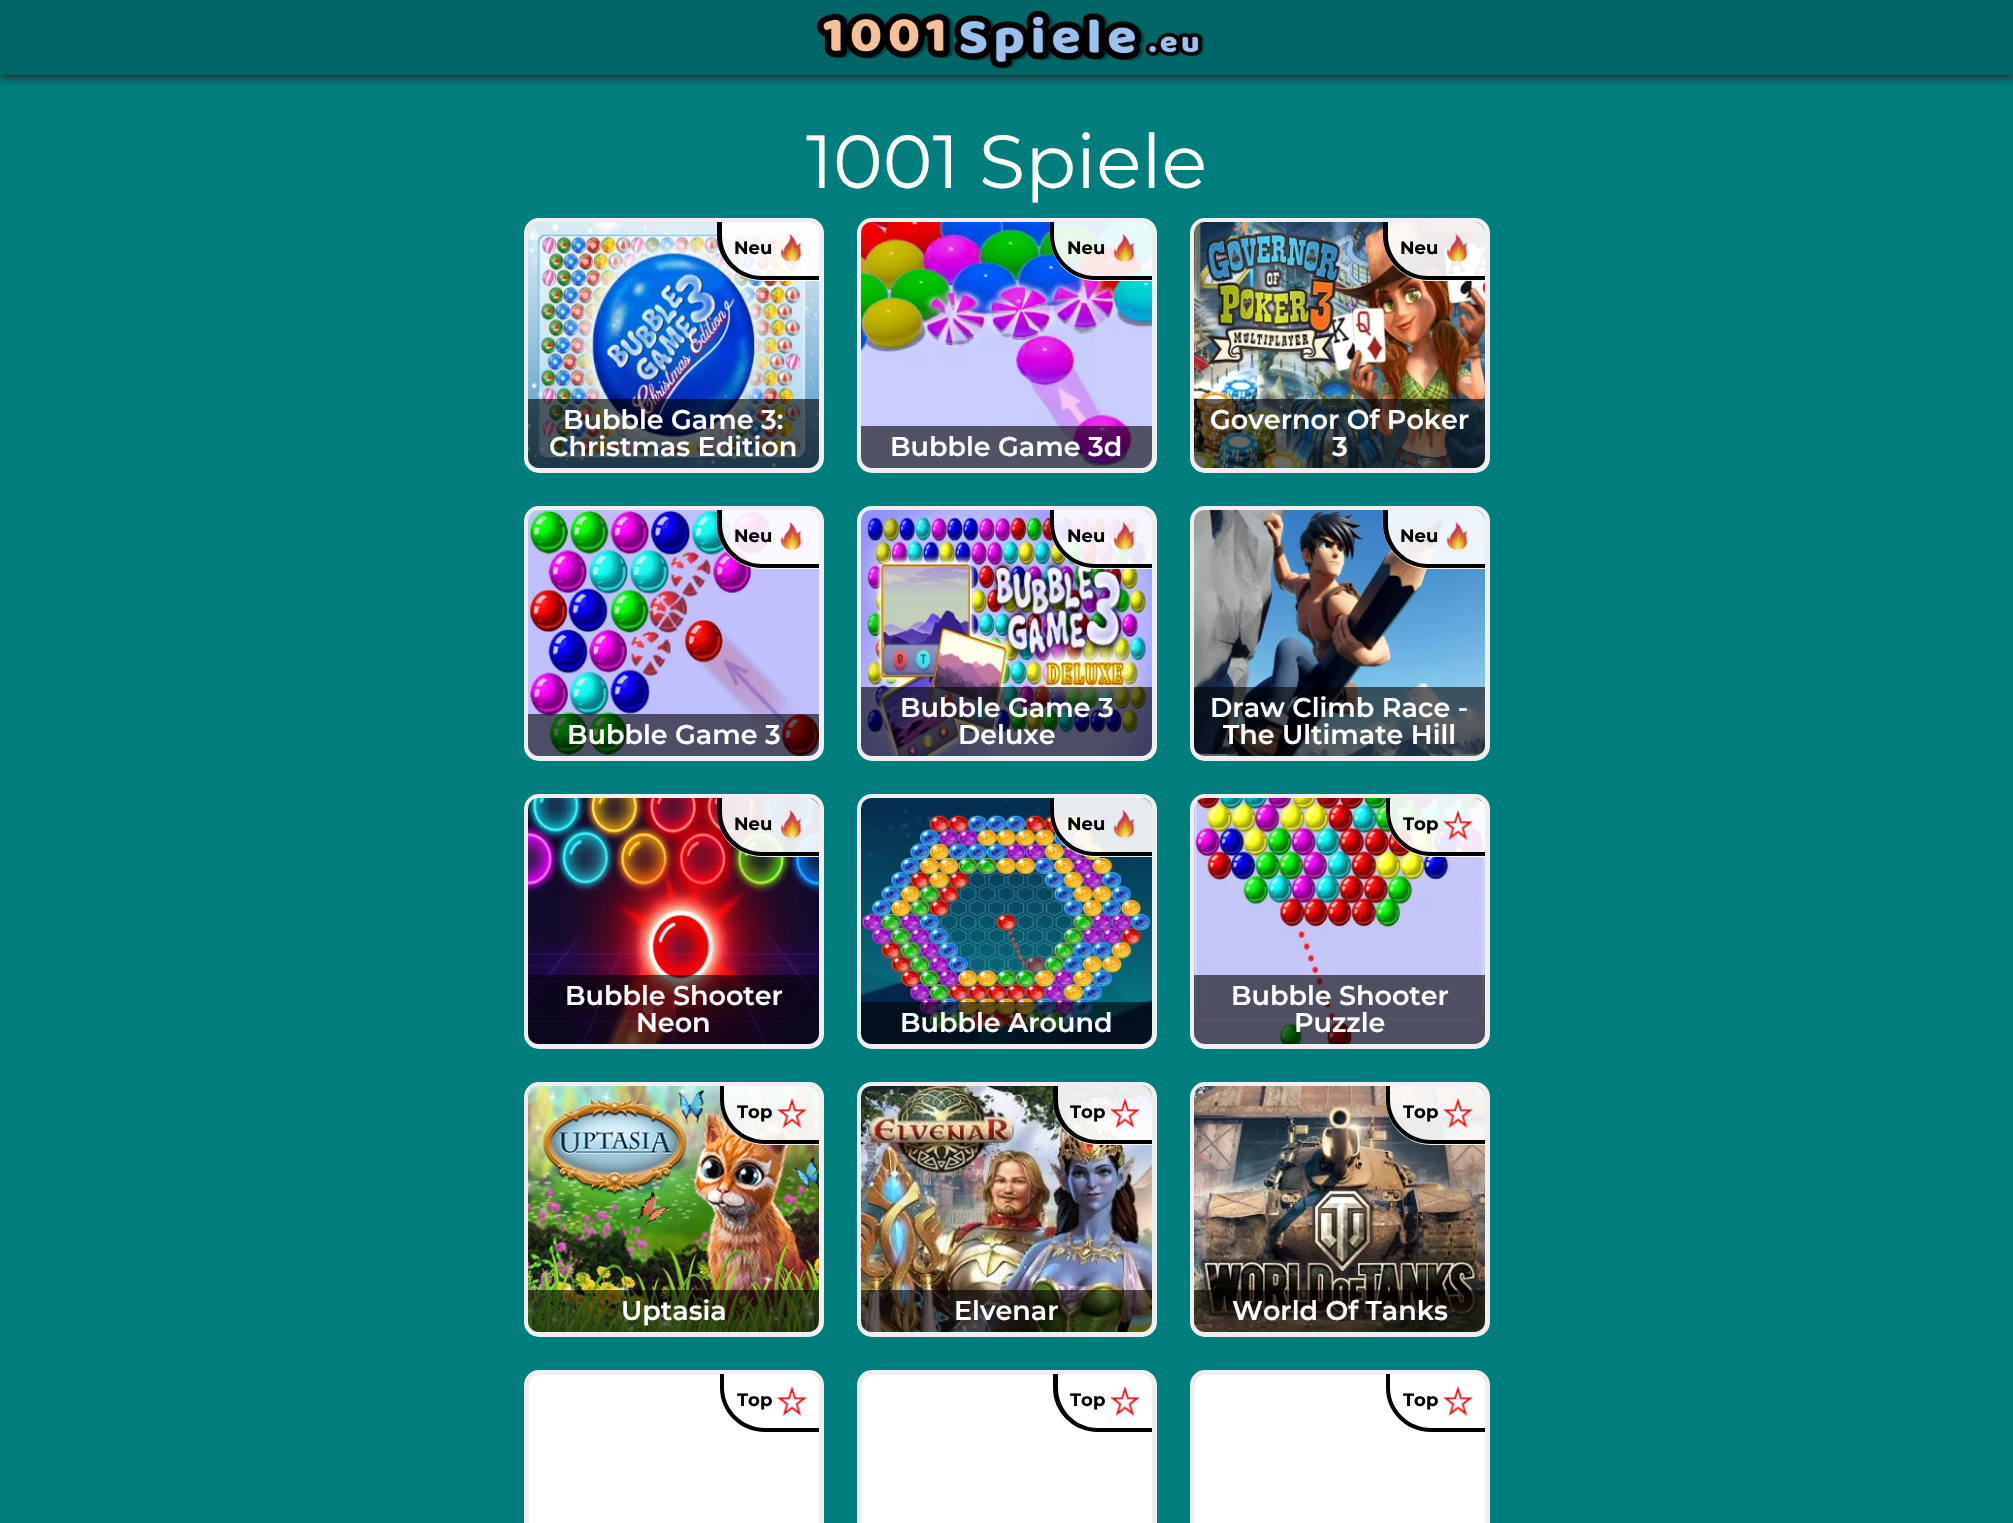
void draw(SkCanvas* canvas) {
    SkPaint paint;
    paint.setAntiAlias(true);
    canvas->clear(0xFF007D7D);
    paint.setColor(0xFF26292E);
    paint.setMaskFilter(SkMaskFilter::MakeBlur(kNormal_SkBlurStyle, 4));
    canvas->drawRect(SkRect::MakeXYWH(0, 3, 2013, 75), paint);
    paint.setMaskFilter(nullptr);
    paint.setColor(0xFF006666);
    canvas->drawRect(SkRect::MakeXYWH(0, 0, 2013, 75), paint);
    canvas->drawImageRect(SkImages::DeferredFromEncodedData(SkData::MakeFromFileName("img1.png")), SkRect::MakeXYWH(817, 10, 387, 59), SkSamplingOptions());
    SkFont font1(fontMgr->matchFamilyStyle("Montserrat", SkFontStyle::Normal()), 75);
    font1.setSubpixel(true);
    paint.setColor(0xFFFFFFFF);
    canvas->drawString("1001 Spiele", 806, 188, font1, paint);
    canvas->drawRoundRect(SkRect::MakeXYWH(526.5f, 220.5f, 295, 250), 12.5f, 12.5f, paint);
    paint.setStyle(SkPaint::kStroke_Style);
    paint.setStrokeWidth(5);
    paint.setColor(0xFFEFEFEF);
    canvas->drawRoundRect(SkRect::MakeXYWH(526.5f, 220.5f, 295, 250), 12.5f, 12.5f, paint);
    canvas->drawImageRect(SkImages::DeferredFromEncodedData(SkData::MakeFromFileName("img2.png")), SkRect::MakeXYWH(528, 222, 291, 246), SkSamplingOptions());
    paint.setStyle(SkPaint::kFill_Style);
    paint.setColor(0xE6FFFFFF);
    canvas->drawPath(SkPathBuilder().moveTo(717, 222).lineTo(808, 222).cubicTo(814, 222, 819, 227, 819, 233).lineTo(819, 281).lineTo(762, 281).cubicTo(737, 281, 717, 261, 717, 236).close().detach(), paint);
    paint.setColor(0xFF000000);
    canvas->drawPath(SkPathBuilder(SkPathFillType::kEvenOdd).moveTo(717, 222).lineTo(819, 222).lineTo(819, 280).lineTo(762, 280).cubicTo(737, 280, 717, 260, 717, 236).close().moveTo(722, 222).lineTo(819, 222).lineTo(819, 276).lineTo(762, 276).cubicTo(740, 276, 722, 258, 722, 236).close().detach(), paint);
    SkFont font2(fontMgr->matchFamilyStyle("Montserrat", SkFontStyle::Bold()), 18);
    font2.setSubpixel(true);
    canvas->drawString("Neu", 734, 254, font2, paint);
    canvas->drawImageRect(SkImages::DeferredFromEncodedData(SkData::MakeFromFileName("img3.png")), SkRect::MakeXYWH(780, 234, 22, 30), SkSamplingOptions());
    paint.setColor(0x99000000);
    canvas->drawPath(SkPathBuilder().moveTo(528, 399).lineTo(819, 399).lineTo(819, 457).cubicTo(819, 463, 814, 468, 808, 468).lineTo(539, 468).cubicTo(533, 468, 528, 463, 528, 457).close().detach(), paint);
    SkFont font3(fontMgr->matchFamilyStyle("Montserrat", SkFontStyle(600, SkFontStyle::kNormal_Width, SkFontStyle::kUpright_Slant)), 27);
    font3.setSubpixel(true);
    paint.setColor(0xFFFFFFFF);
    canvas->drawString("Bubble Game 3:", 563, 429, font3, paint);
    canvas->drawString("Christmas Edition", 549, 456, font3, paint);
    canvas->drawRoundRect(SkRect::MakeXYWH(859.5f, 220.5f, 295, 250), 12.5f, 12.5f, paint);
    paint.setStyle(SkPaint::kStroke_Style);
    paint.setColor(0xFFEFEFEF);
    canvas->drawRoundRect(SkRect::MakeXYWH(859.5f, 220.5f, 295, 250), 12.5f, 12.5f, paint);
    canvas->drawImageRect(SkImages::DeferredFromEncodedData(SkData::MakeFromFileName("img4.png")), SkRect::MakeXYWH(861, 222, 291, 246), SkSamplingOptions());
    paint.setStyle(SkPaint::kFill_Style);
    paint.setColor(0xE6FFFFFF);
    canvas->drawPath(SkPathBuilder().moveTo(1050, 222).lineTo(1141, 222).cubicTo(1147, 222, 1152, 227, 1152, 233).lineTo(1152, 281).lineTo(1095, 281).cubicTo(1070, 281, 1050, 261, 1050, 236).close().detach(), paint);
    paint.setColor(0xFF000000);
    canvas->drawPath(SkPathBuilder(SkPathFillType::kEvenOdd).moveTo(1050, 222).lineTo(1152, 222).lineTo(1152, 280).lineTo(1095, 280).cubicTo(1070, 280, 1050, 260, 1050, 236).close().moveTo(1054, 222).lineTo(1152, 222).lineTo(1152, 276).lineTo(1095, 276).cubicTo(1073, 276, 1054, 258, 1054, 236).close().detach(), paint);
    canvas->drawString("Neu", 1067, 254, font2, paint);
    canvas->drawImageRect(SkImages::DeferredFromEncodedData(SkData::MakeFromFileName("img5.png")), SkRect::MakeXYWH(1113, 234, 22, 30), SkSamplingOptions());
    paint.setColor(0x99000000);
    canvas->drawPath(SkPathBuilder().moveTo(861, 426).lineTo(1152, 426).lineTo(1152, 457).cubicTo(1152, 463, 1147, 468, 1141, 468).lineTo(872, 468).cubicTo(866, 468, 861, 463, 861, 457).close().detach(), paint);
    paint.setColor(0xFFFFFFFF);
    canvas->drawString("Bubble Game 3d", 890, 456, font3, paint);
    canvas->drawRoundRect(SkRect::MakeXYWH(1192.5f, 220.5f, 295, 250), 12.5f, 12.5f, paint);
    paint.setStyle(SkPaint::kStroke_Style);
    paint.setColor(0xFFEFEFEF);
    canvas->drawRoundRect(SkRect::MakeXYWH(1192.5f, 220.5f, 295, 250), 12.5f, 12.5f, paint);
    canvas->drawImageRect(SkImages::DeferredFromEncodedData(SkData::MakeFromFileName("img6.png")), SkRect::MakeXYWH(1194, 222, 291, 246), SkSamplingOptions());
    paint.setStyle(SkPaint::kFill_Style);
    paint.setColor(0xE6FFFFFF);
    canvas->drawPath(SkPathBuilder().moveTo(1383, 222).lineTo(1474, 222).cubicTo(1480, 222, 1485, 227, 1485, 233).lineTo(1485, 281).lineTo(1428, 281).cubicTo(1403, 281, 1383, 261, 1383, 236).close().detach(), paint);
    paint.setColor(0xFF000000);
    canvas->drawPath(SkPathBuilder(SkPathFillType::kEvenOdd).moveTo(1383, 222).lineTo(1485, 222).lineTo(1485, 280).lineTo(1428, 280).cubicTo(1403, 280, 1383, 260, 1383, 236).close().moveTo(1388, 222).lineTo(1485, 222).lineTo(1485, 276).lineTo(1428, 276).cubicTo(1406, 276, 1388, 258, 1388, 236).close().detach(), paint);
    canvas->drawString("Neu", 1400, 254, font2, paint);
    canvas->drawImageRect(SkImages::DeferredFromEncodedData(SkData::MakeFromFileName("img7.png")), SkRect::MakeXYWH(1446, 234, 22, 30), SkSamplingOptions());
    paint.setColor(0x99000000);
    canvas->drawPath(SkPathBuilder().moveTo(1194, 399).lineTo(1485, 399).lineTo(1485, 457).cubicTo(1485, 463, 1480, 468, 1474, 468).lineTo(1205, 468).cubicTo(1199, 468, 1194, 463, 1194, 457).close().detach(), paint);
    paint.setColor(0xFFFFFFFF);
    canvas->drawString("Governor Of Poker", 1210, 429, font3, paint);
    canvas->drawString("3", 1332, 456, font3, paint);
    canvas->drawRoundRect(SkRect::MakeXYWH(526.5f, 508.5f, 295, 250), 12.5f, 12.5f, paint);
    paint.setStyle(SkPaint::kStroke_Style);
    paint.setColor(0xFFEFEFEF);
    canvas->drawRoundRect(SkRect::MakeXYWH(526.5f, 508.5f, 295, 250), 12.5f, 12.5f, paint);
    canvas->drawImageRect(SkImages::DeferredFromEncodedData(SkData::MakeFromFileName("img8.png")), SkRect::MakeXYWH(528, 510, 291, 246), SkSamplingOptions());
    paint.setStyle(SkPaint::kFill_Style);
    paint.setColor(0xE6FFFFFF);
    canvas->drawPath(SkPathBuilder().moveTo(717, 510).lineTo(808, 510).cubicTo(814, 510, 819, 515, 819, 521).lineTo(819, 569).lineTo(762, 569).cubicTo(737, 569, 717, 549, 717, 524).close().detach(), paint);
    paint.setColor(0xFF000000);
    canvas->drawPath(SkPathBuilder(SkPathFillType::kEvenOdd).moveTo(717, 510).lineTo(819, 510).lineTo(819, 568).lineTo(762, 568).cubicTo(737, 568, 717, 548, 717, 524).close().moveTo(722, 510).lineTo(819, 510).lineTo(819, 564).lineTo(762, 564).cubicTo(740, 564, 722, 546, 722, 524).close().detach(), paint);
    canvas->drawString("Neu", 734, 542, font2, paint);
    canvas->drawImageRect(SkImages::DeferredFromEncodedData(SkData::MakeFromFileName("img9.png")), SkRect::MakeXYWH(780, 522, 22, 30), SkSamplingOptions());
    paint.setColor(0x99000000);
    canvas->drawPath(SkPathBuilder().moveTo(528, 714).lineTo(819, 714).lineTo(819, 745).cubicTo(819, 751, 814, 756, 808, 756).lineTo(539, 756).cubicTo(533, 756, 528, 751, 528, 745).close().detach(), paint);
    paint.setColor(0xFFFFFFFF);
    canvas->drawString("Bubble Game 3", 567, 744, font3, paint);
    canvas->drawRoundRect(SkRect::MakeXYWH(859.5f, 508.5f, 295, 250), 12.5f, 12.5f, paint);
    paint.setStyle(SkPaint::kStroke_Style);
    paint.setColor(0xFFEFEFEF);
    canvas->drawRoundRect(SkRect::MakeXYWH(859.5f, 508.5f, 295, 250), 12.5f, 12.5f, paint);
    canvas->drawImageRect(SkImages::DeferredFromEncodedData(SkData::MakeFromFileName("img10.png")), SkRect::MakeXYWH(861, 510, 291, 246), SkSamplingOptions());
    paint.setStyle(SkPaint::kFill_Style);
    paint.setColor(0xE6FFFFFF);
    canvas->drawPath(SkPathBuilder().moveTo(1050, 510).lineTo(1141, 510).cubicTo(1147, 510, 1152, 515, 1152, 521).lineTo(1152, 569).lineTo(1095, 569).cubicTo(1070, 569, 1050, 549, 1050, 524).close().detach(), paint);
    paint.setColor(0xFF000000);
    canvas->drawPath(SkPathBuilder(SkPathFillType::kEvenOdd).moveTo(1050, 510).lineTo(1152, 510).lineTo(1152, 568).lineTo(1095, 568).cubicTo(1070, 568, 1050, 548, 1050, 524).close().moveTo(1054, 510).lineTo(1152, 510).lineTo(1152, 564).lineTo(1095, 564).cubicTo(1073, 564, 1054, 546, 1054, 524).close().detach(), paint);
    canvas->drawString("Neu", 1067, 542, font2, paint);
    canvas->drawImageRect(SkImages::DeferredFromEncodedData(SkData::MakeFromFileName("img11.png")), SkRect::MakeXYWH(1113, 522, 22, 30), SkSamplingOptions());
    paint.setColor(0x99000000);
    canvas->drawPath(SkPathBuilder().moveTo(861, 687).lineTo(1152, 687).lineTo(1152, 745).cubicTo(1152, 751, 1147, 756, 1141, 756).lineTo(872, 756).cubicTo(866, 756, 861, 751, 861, 745).close().detach(), paint);
    paint.setColor(0xFFFFFFFF);
    canvas->drawString("Bubble Game 3", 900, 717, font3, paint);
    canvas->drawString("Deluxe", 958, 744, font3, paint);
    canvas->drawRoundRect(SkRect::MakeXYWH(1192.5f, 508.5f, 295, 250), 12.5f, 12.5f, paint);
    paint.setStyle(SkPaint::kStroke_Style);
    paint.setColor(0xFFEFEFEF);
    canvas->drawRoundRect(SkRect::MakeXYWH(1192.5f, 508.5f, 295, 250), 12.5f, 12.5f, paint);
    canvas->drawImageRect(SkImages::DeferredFromEncodedData(SkData::MakeFromFileName("img12.png")), SkRect::MakeXYWH(1194, 510, 291, 246), SkSamplingOptions());
    paint.setStyle(SkPaint::kFill_Style);
    paint.setColor(0xE6FFFFFF);
    canvas->drawPath(SkPathBuilder().moveTo(1383, 510).lineTo(1474, 510).cubicTo(1480, 510, 1485, 515, 1485, 521).lineTo(1485, 569).lineTo(1428, 569).cubicTo(1403, 569, 1383, 549, 1383, 524).close().detach(), paint);
    paint.setColor(0xFF000000);
    canvas->drawPath(SkPathBuilder(SkPathFillType::kEvenOdd).moveTo(1383, 510).lineTo(1485, 510).lineTo(1485, 568).lineTo(1428, 568).cubicTo(1403, 568, 1383, 548, 1383, 524).close().moveTo(1388, 510).lineTo(1485, 510).lineTo(1485, 564).lineTo(1428, 564).cubicTo(1406, 564, 1388, 546, 1388, 524).close().detach(), paint);
    canvas->drawString("Neu", 1400, 542, font2, paint);
    canvas->drawImageRect(SkImages::DeferredFromEncodedData(SkData::MakeFromFileName("img13.png")), SkRect::MakeXYWH(1446, 522, 22, 30), SkSamplingOptions());
    paint.setColor(0x99000000);
    canvas->drawPath(SkPathBuilder().moveTo(1194, 687).lineTo(1485, 687).lineTo(1485, 745).cubicTo(1485, 751, 1480, 756, 1474, 756).lineTo(1205, 756).cubicTo(1199, 756, 1194, 751, 1194, 745).close().detach(), paint);
    paint.setColor(0xFFFFFFFF);
    canvas->drawString("Draw Climb Race -", 1210, 717, font3, paint);
    canvas->drawString("The Ultimate Hill", 1223, 744, font3, paint);
    canvas->drawRoundRect(SkRect::MakeXYWH(526.5f, 796.5f, 295, 250), 12.5f, 12.5f, paint);
    paint.setStyle(SkPaint::kStroke_Style);
    paint.setColor(0xFFEFEFEF);
    canvas->drawRoundRect(SkRect::MakeXYWH(526.5f, 796.5f, 295, 250), 12.5f, 12.5f, paint);
    canvas->drawImageRect(SkImages::DeferredFromEncodedData(SkData::MakeFromFileName("img14.png")), SkRect::MakeXYWH(528, 798, 291, 246), SkSamplingOptions());
    paint.setStyle(SkPaint::kFill_Style);
    paint.setColor(0xE6FFFFFF);
    canvas->drawPath(SkPathBuilder().moveTo(717, 798).lineTo(808, 798).cubicTo(814, 798, 819, 803, 819, 809).lineTo(819, 857).lineTo(762, 857).cubicTo(737, 857, 717, 837, 717, 812).close().detach(), paint);
    paint.setColor(0xFF000000);
    canvas->drawPath(SkPathBuilder(SkPathFillType::kEvenOdd).moveTo(717, 798).lineTo(819, 798).lineTo(819, 856).lineTo(762, 856).cubicTo(737, 856, 717, 836, 717, 812).close().moveTo(722, 798).lineTo(819, 798).lineTo(819, 852).lineTo(762, 852).cubicTo(740, 852, 722, 834, 722, 812).close().detach(), paint);
    canvas->drawString("Neu", 734, 830, font2, paint);
    canvas->drawImageRect(SkImages::DeferredFromEncodedData(SkData::MakeFromFileName("img15.png")), SkRect::MakeXYWH(780, 810, 22, 30), SkSamplingOptions());
    paint.setColor(0x99000000);
    canvas->drawPath(SkPathBuilder().moveTo(528, 975).lineTo(819, 975).lineTo(819, 1033).cubicTo(819, 1039, 814, 1044, 808, 1044).lineTo(539, 1044).cubicTo(533, 1044, 528, 1039, 528, 1033).close().detach(), paint);
    paint.setColor(0xFFFFFFFF);
    canvas->drawString("Bubble Shooter", 565, 1005, font3, paint);
    canvas->drawString("Neon", 636, 1032, font3, paint);
    canvas->drawRoundRect(SkRect::MakeXYWH(859.5f, 796.5f, 295, 250), 12.5f, 12.5f, paint);
    paint.setStyle(SkPaint::kStroke_Style);
    paint.setColor(0xFFEFEFEF);
    canvas->drawRoundRect(SkRect::MakeXYWH(859.5f, 796.5f, 295, 250), 12.5f, 12.5f, paint);
    canvas->drawImageRect(SkImages::DeferredFromEncodedData(SkData::MakeFromFileName("img16.png")), SkRect::MakeXYWH(861, 798, 291, 246), SkSamplingOptions());
    paint.setStyle(SkPaint::kFill_Style);
    paint.setColor(0xE6FFFFFF);
    canvas->drawPath(SkPathBuilder().moveTo(1050, 798).lineTo(1141, 798).cubicTo(1147, 798, 1152, 803, 1152, 809).lineTo(1152, 857).lineTo(1095, 857).cubicTo(1070, 857, 1050, 837, 1050, 812).close().detach(), paint);
    paint.setColor(0xFF000000);
    canvas->drawPath(SkPathBuilder(SkPathFillType::kEvenOdd).moveTo(1050, 798).lineTo(1152, 798).lineTo(1152, 856).lineTo(1095, 856).cubicTo(1070, 856, 1050, 836, 1050, 812).close().moveTo(1054, 798).lineTo(1152, 798).lineTo(1152, 852).lineTo(1095, 852).cubicTo(1073, 852, 1054, 834, 1054, 812).close().detach(), paint);
    canvas->drawString("Neu", 1067, 830, font2, paint);
    canvas->drawImageRect(SkImages::DeferredFromEncodedData(SkData::MakeFromFileName("img17.png")), SkRect::MakeXYWH(1113, 810, 22, 30), SkSamplingOptions());
    paint.setColor(0x99000000);
    canvas->drawPath(SkPathBuilder().moveTo(861, 1002).lineTo(1152, 1002).lineTo(1152, 1033).cubicTo(1152, 1039, 1147, 1044, 1141, 1044).lineTo(872, 1044).cubicTo(866, 1044, 861, 1039, 861, 1033).close().detach(), paint);
    paint.setColor(0xFFFFFFFF);
    canvas->drawString("Bubble Around", 900, 1032, font3, paint);
    canvas->drawRoundRect(SkRect::MakeXYWH(1192.5f, 796.5f, 295, 250), 12.5f, 12.5f, paint);
    paint.setStyle(SkPaint::kStroke_Style);
    paint.setColor(0xFFEFEFEF);
    canvas->drawRoundRect(SkRect::MakeXYWH(1192.5f, 796.5f, 295, 250), 12.5f, 12.5f, paint);
    canvas->drawImageRect(SkImages::DeferredFromEncodedData(SkData::MakeFromFileName("img18.png")), SkRect::MakeXYWH(1194, 798, 291, 246), SkSamplingOptions());
    paint.setStyle(SkPaint::kFill_Style);
    paint.setColor(0xE6FFFFFF);
    canvas->drawPath(SkPathBuilder().moveTo(1386, 798).lineTo(1474, 798).cubicTo(1480, 798, 1485, 803, 1485, 809).lineTo(1485, 857).lineTo(1431, 857).cubicTo(1406, 857, 1386, 837, 1386, 812).close().detach(), paint);
    paint.setColor(0xFF000000);
    canvas->drawPath(SkPathBuilder(SkPathFillType::kEvenOdd).moveTo(1386, 798).lineTo(1485, 798).lineTo(1485, 856).lineTo(1431, 856).cubicTo(1406, 856, 1386, 836, 1386, 812).close().moveTo(1390, 798).lineTo(1485, 798).lineTo(1485, 852).lineTo(1431, 852).cubicTo(1409, 852, 1390, 834, 1390, 812).close().detach(), paint);
    canvas->drawString("Top", 1403, 830, font2, paint);
    canvas->drawImageRect(SkImages::DeferredFromEncodedData(SkData::MakeFromFileName("img19.png")), SkRect::MakeXYWH(1443, 810, 30, 30), SkSamplingOptions());
    paint.setColor(0x99000000);
    canvas->drawPath(SkPathBuilder().moveTo(1194, 975).lineTo(1485, 975).lineTo(1485, 1033).cubicTo(1485, 1039, 1480, 1044, 1474, 1044).lineTo(1205, 1044).cubicTo(1199, 1044, 1194, 1039, 1194, 1033).close().detach(), paint);
    paint.setColor(0xFFFFFFFF);
    canvas->drawString("Bubble Shooter", 1231, 1005, font3, paint);
    canvas->drawString("Puzzle", 1294, 1032, font3, paint);
    canvas->drawRoundRect(SkRect::MakeXYWH(526.5f, 1084.5f, 295, 250), 12.5f, 12.5f, paint);
    paint.setStyle(SkPaint::kStroke_Style);
    paint.setColor(0xFFEFEFEF);
    canvas->drawRoundRect(SkRect::MakeXYWH(526.5f, 1084.5f, 295, 250), 12.5f, 12.5f, paint);
    canvas->drawImageRect(SkImages::DeferredFromEncodedData(SkData::MakeFromFileName("img20.png")), SkRect::MakeXYWH(528, 1086, 291, 246), SkSamplingOptions());
    paint.setStyle(SkPaint::kFill_Style);
    paint.setColor(0xE6FFFFFF);
    canvas->drawPath(SkPathBuilder().moveTo(720, 1086).lineTo(808, 1086).cubicTo(814, 1086, 819, 1091, 819, 1097).lineTo(819, 1145).lineTo(765, 1145).cubicTo(740, 1145, 720, 1125, 720, 1100).close().detach(), paint);
    paint.setColor(0xFF000000);
    canvas->drawPath(SkPathBuilder(SkPathFillType::kEvenOdd).moveTo(720, 1086).lineTo(819, 1086).lineTo(819, 1144).lineTo(765, 1144).cubicTo(740, 1144, 720, 1124, 720, 1100).close().moveTo(724, 1086).lineTo(819, 1086).lineTo(819, 1140).lineTo(765, 1140).cubicTo(743, 1140, 724, 1122, 724, 1100).close().detach(), paint);
    canvas->drawString("Top", 737, 1118, font2, paint);
    canvas->drawImageRect(SkImages::DeferredFromEncodedData(SkData::MakeFromFileName("img21.png")), SkRect::MakeXYWH(777, 1098, 30, 30), SkSamplingOptions());
    paint.setColor(0x99000000);
    canvas->drawPath(SkPathBuilder().moveTo(528, 1290).lineTo(819, 1290).lineTo(819, 1321).cubicTo(819, 1327, 814, 1332, 808, 1332).lineTo(539, 1332).cubicTo(533, 1332, 528, 1327, 528, 1321).close().detach(), paint);
    paint.setColor(0xFFFFFFFF);
    canvas->drawString("Uptasia", 621, 1320, font3, paint);
    canvas->drawRoundRect(SkRect::MakeXYWH(859.5f, 1084.5f, 295, 250), 12.5f, 12.5f, paint);
    paint.setStyle(SkPaint::kStroke_Style);
    paint.setColor(0xFFEFEFEF);
    canvas->drawRoundRect(SkRect::MakeXYWH(859.5f, 1084.5f, 295, 250), 12.5f, 12.5f, paint);
    canvas->drawImageRect(SkImages::DeferredFromEncodedData(SkData::MakeFromFileName("img22.png")), SkRect::MakeXYWH(861, 1086, 291, 246), SkSamplingOptions());
    paint.setStyle(SkPaint::kFill_Style);
    paint.setColor(0xE6FFFFFF);
    canvas->drawPath(SkPathBuilder().moveTo(1053, 1086).lineTo(1141, 1086).cubicTo(1147, 1086, 1152, 1091, 1152, 1097).lineTo(1152, 1145).lineTo(1098, 1145).cubicTo(1073, 1145, 1053, 1125, 1053, 1100).close().detach(), paint);
    paint.setColor(0xFF000000);
    canvas->drawPath(SkPathBuilder(SkPathFillType::kEvenOdd).moveTo(1053, 1086).lineTo(1152, 1086).lineTo(1152, 1144).lineTo(1098, 1144).cubicTo(1073, 1144, 1053, 1124, 1053, 1100).close().moveTo(1058, 1086).lineTo(1152, 1086).lineTo(1152, 1140).lineTo(1098, 1140).cubicTo(1076, 1140, 1058, 1122, 1058, 1100).close().detach(), paint);
    canvas->drawString("Top", 1070, 1118, font2, paint);
    canvas->drawImageRect(SkImages::DeferredFromEncodedData(SkData::MakeFromFileName("img23.png")), SkRect::MakeXYWH(1110, 1098, 30, 30), SkSamplingOptions());
    paint.setColor(0x99000000);
    canvas->drawPath(SkPathBuilder().moveTo(861, 1290).lineTo(1152, 1290).lineTo(1152, 1321).cubicTo(1152, 1327, 1147, 1332, 1141, 1332).lineTo(872, 1332).cubicTo(866, 1332, 861, 1327, 861, 1321).close().detach(), paint);
    paint.setColor(0xFFFFFFFF);
    canvas->drawString("Elvenar", 954, 1320, font3, paint);
    canvas->drawRoundRect(SkRect::MakeXYWH(1192.5f, 1084.5f, 295, 250), 12.5f, 12.5f, paint);
    paint.setStyle(SkPaint::kStroke_Style);
    paint.setColor(0xFFEFEFEF);
    canvas->drawRoundRect(SkRect::MakeXYWH(1192.5f, 1084.5f, 295, 250), 12.5f, 12.5f, paint);
    canvas->drawImageRect(SkImages::DeferredFromEncodedData(SkData::MakeFromFileName("img24.png")), SkRect::MakeXYWH(1194, 1086, 291, 246), SkSamplingOptions());
    paint.setStyle(SkPaint::kFill_Style);
    paint.setColor(0xE6FFFFFF);
    canvas->drawPath(SkPathBuilder().moveTo(1386, 1086).lineTo(1474, 1086).cubicTo(1480, 1086, 1485, 1091, 1485, 1097).lineTo(1485, 1145).lineTo(1431, 1145).cubicTo(1406, 1145, 1386, 1125, 1386, 1100).close().detach(), paint);
    paint.setColor(0xFF000000);
    canvas->drawPath(SkPathBuilder(SkPathFillType::kEvenOdd).moveTo(1386, 1086).lineTo(1485, 1086).lineTo(1485, 1144).lineTo(1431, 1144).cubicTo(1406, 1144, 1386, 1124, 1386, 1100).close().moveTo(1390, 1086).lineTo(1485, 1086).lineTo(1485, 1140).lineTo(1431, 1140).cubicTo(1409, 1140, 1390, 1122, 1390, 1100).close().detach(), paint);
    canvas->drawString("Top", 1403, 1118, font2, paint);
    canvas->drawImageRect(SkImages::DeferredFromEncodedData(SkData::MakeFromFileName("img25.png")), SkRect::MakeXYWH(1443, 1098, 30, 30), SkSamplingOptions());
    paint.setColor(0x99000000);
    canvas->drawPath(SkPathBuilder().moveTo(1194, 1290).lineTo(1485, 1290).lineTo(1485, 1321).cubicTo(1485, 1327, 1480, 1332, 1474, 1332).lineTo(1205, 1332).cubicTo(1199, 1332, 1194, 1327, 1194, 1321).close().detach(), paint);
    paint.setColor(0xFFFFFFFF);
    canvas->drawString("World Of Tanks", 1232, 1320, font3, paint);
    canvas->drawRoundRect(SkRect::MakeXYWH(526.5f, 1372.5f, 295, 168), 12.5f, 12.5f, paint);
    paint.setStyle(SkPaint::kStroke_Style);
    paint.setColor(0xFFEFEFEF);
    canvas->drawRoundRect(SkRect::MakeXYWH(526.5f, 1372.5f, 295, 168), 12.5f, 12.5f, paint);
    paint.setStyle(SkPaint::kFill_Style);
    paint.setColor(0xE6FFFFFF);
    canvas->drawPath(SkPathBuilder().moveTo(720, 1374).lineTo(808, 1374).cubicTo(814, 1374, 819, 1379, 819, 1385).lineTo(819, 1433).lineTo(765, 1433).cubicTo(740, 1433, 720, 1413, 720, 1388).close().detach(), paint);
    paint.setColor(0xFF000000);
    canvas->drawPath(SkPathBuilder(SkPathFillType::kEvenOdd).moveTo(720, 1374).lineTo(819, 1374).lineTo(819, 1432).lineTo(765, 1432).cubicTo(740, 1432, 720, 1412, 720, 1388).close().moveTo(724, 1374).lineTo(819, 1374).lineTo(819, 1428).lineTo(765, 1428).cubicTo(743, 1428, 724, 1410, 724, 1388).close().detach(), paint);
    canvas->drawString("Top", 737, 1406, font2, paint);
    canvas->drawImageRect(SkImages::DeferredFromEncodedData(SkData::MakeFromFileName("img26.png")), SkRect::MakeXYWH(777, 1386, 30, 30), SkSamplingOptions());
    paint.setColor(0xFFFFFFFF);
    canvas->drawRoundRect(SkRect::MakeXYWH(859.5f, 1372.5f, 295, 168), 12.5f, 12.5f, paint);
    paint.setStyle(SkPaint::kStroke_Style);
    paint.setColor(0xFFEFEFEF);
    canvas->drawRoundRect(SkRect::MakeXYWH(859.5f, 1372.5f, 295, 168), 12.5f, 12.5f, paint);
    paint.setStyle(SkPaint::kFill_Style);
    paint.setColor(0xE6FFFFFF);
    canvas->drawPath(SkPathBuilder().moveTo(1053, 1374).lineTo(1141, 1374).cubicTo(1147, 1374, 1152, 1379, 1152, 1385).lineTo(1152, 1433).lineTo(1098, 1433).cubicTo(1073, 1433, 1053, 1413, 1053, 1388).close().detach(), paint);
    paint.setColor(0xFF000000);
    canvas->drawPath(SkPathBuilder(SkPathFillType::kEvenOdd).moveTo(1053, 1374).lineTo(1152, 1374).lineTo(1152, 1432).lineTo(1098, 1432).cubicTo(1073, 1432, 1053, 1412, 1053, 1388).close().moveTo(1058, 1374).lineTo(1152, 1374).lineTo(1152, 1428).lineTo(1098, 1428).cubicTo(1076, 1428, 1058, 1410, 1058, 1388).close().detach(), paint);
    canvas->drawString("Top", 1070, 1406, font2, paint);
    canvas->drawImageRect(SkImages::DeferredFromEncodedData(SkData::MakeFromFileName("img27.png")), SkRect::MakeXYWH(1110, 1386, 30, 30), SkSamplingOptions());
    paint.setColor(0xFFFFFFFF);
    canvas->drawRoundRect(SkRect::MakeXYWH(1192.5f, 1372.5f, 295, 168), 12.5f, 12.5f, paint);
    paint.setStyle(SkPaint::kStroke_Style);
    paint.setColor(0xFFEFEFEF);
    canvas->drawRoundRect(SkRect::MakeXYWH(1192.5f, 1372.5f, 295, 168), 12.5f, 12.5f, paint);
    paint.setStyle(SkPaint::kFill_Style);
    paint.setColor(0xE6FFFFFF);
    canvas->drawPath(SkPathBuilder().moveTo(1386, 1374).lineTo(1474, 1374).cubicTo(1480, 1374, 1485, 1379, 1485, 1385).lineTo(1485, 1433).lineTo(1431, 1433).cubicTo(1406, 1433, 1386, 1413, 1386, 1388).close().detach(), paint);
    paint.setColor(0xFF000000);
    canvas->drawPath(SkPathBuilder(SkPathFillType::kEvenOdd).moveTo(1386, 1374).lineTo(1485, 1374).lineTo(1485, 1432).lineTo(1431, 1432).cubicTo(1406, 1432, 1386, 1412, 1386, 1388).close().moveTo(1390, 1374).lineTo(1485, 1374).lineTo(1485, 1428).lineTo(1431, 1428).cubicTo(1409, 1428, 1390, 1410, 1390, 1388).close().detach(), paint);
    canvas->drawString("Top", 1403, 1406, font2, paint);
    canvas->drawImageRect(SkImages::DeferredFromEncodedData(SkData::MakeFromFileName("img26.png")), SkRect::MakeXYWH(1443, 1386, 30, 30), SkSamplingOptions());
}
